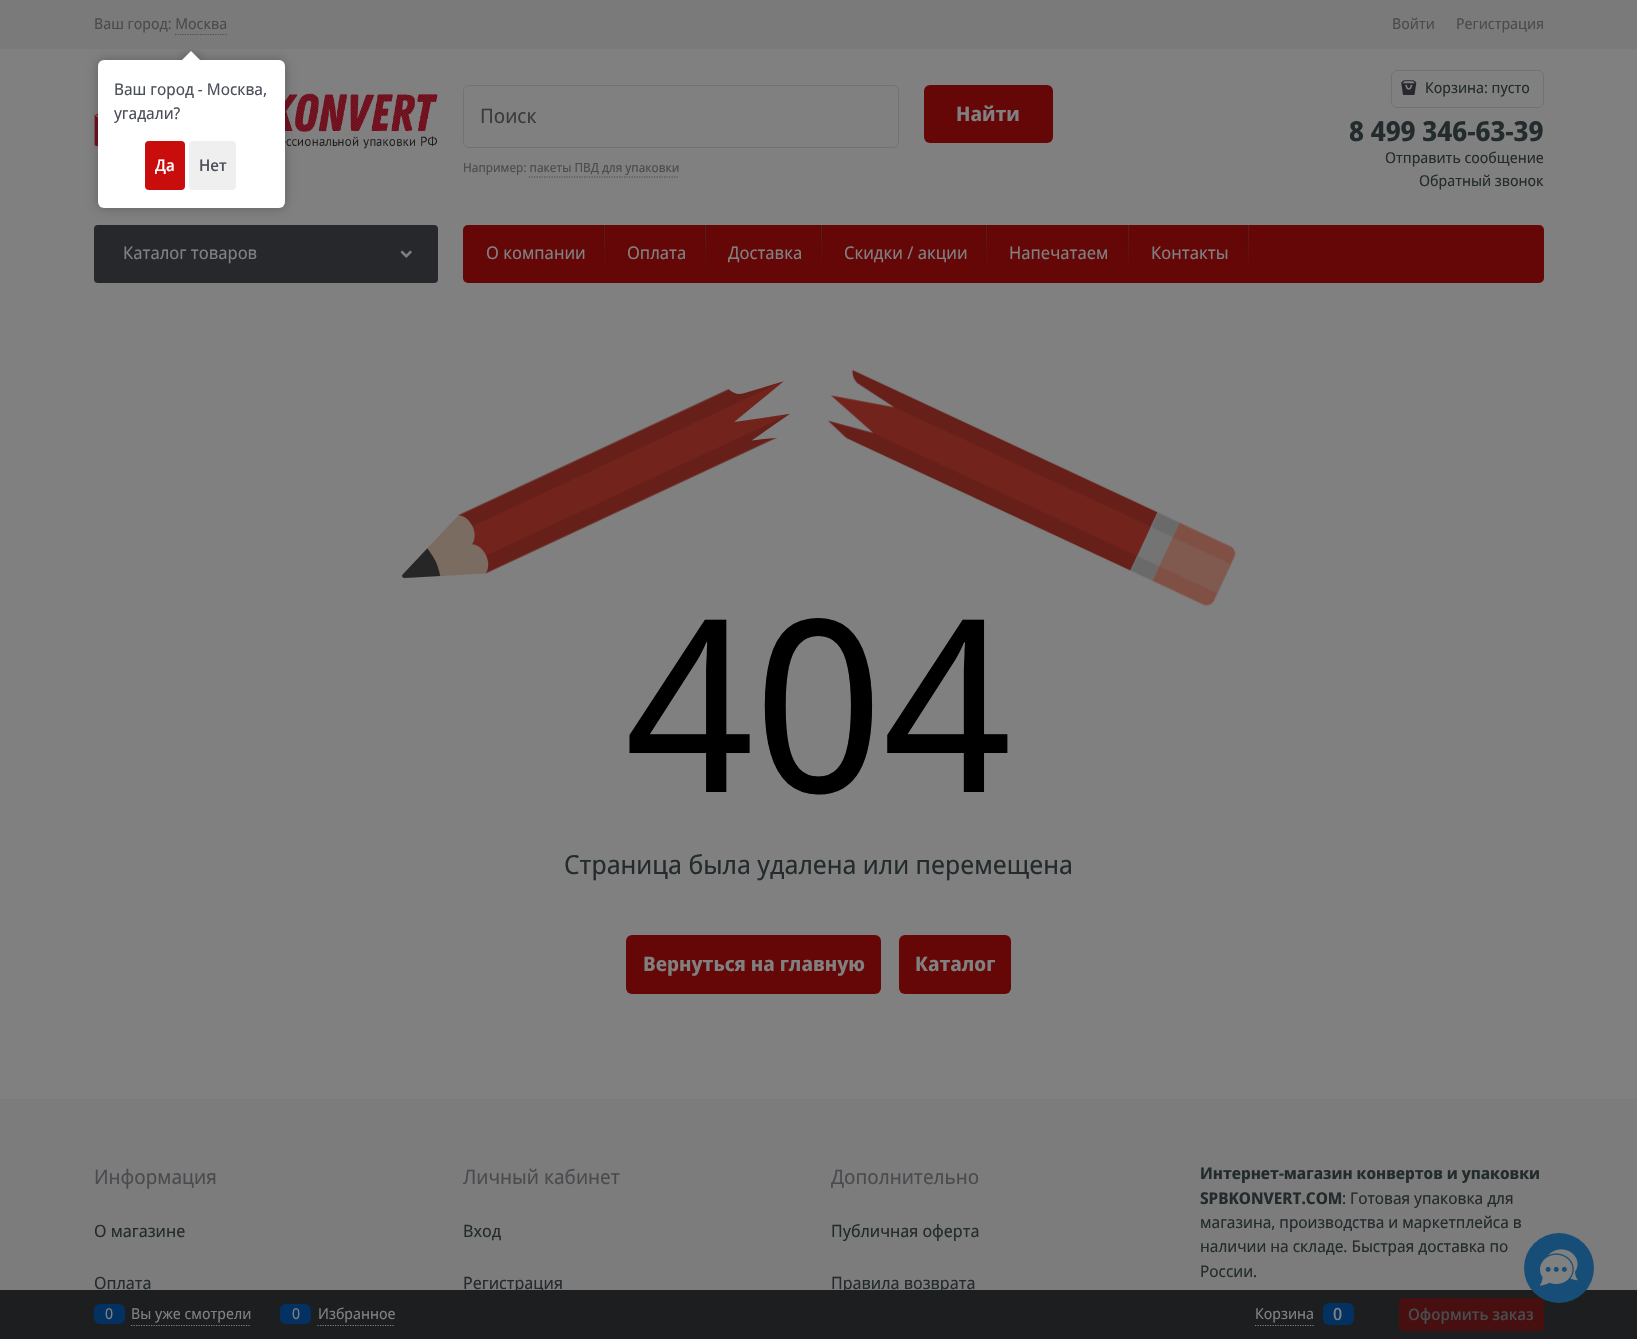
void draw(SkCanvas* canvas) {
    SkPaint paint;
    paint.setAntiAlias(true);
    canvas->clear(0xFF808080);
    paint.setColor(0xFF7A7A7A);
    canvas->drawRect(SkRect::MakeXYWH(0, 0, 1637, 49), paint);
    SkFont font1(fontMgr->matchFamilyStyle("Noto Sans Display", SkFontStyle::Normal()), 15);
    font1.setSubpixel(true);
    paint.setColor(0xFF4A4B4E);
    canvas->drawString("Ваш город: Москва", 94, 29, font1, paint);
    paint.setStyle(SkPaint::kStroke_Style);
    paint.setStrokeWidth(1.2f);
    paint.setPathEffect(SkDashPathEffect::Make({{1.25f, 1.25f}}, 0));
    canvas->drawPath(SkPathBuilder().moveTo(175, 34.5f).lineTo(227.5f, 34.5f).detach(), paint);
    paint.setPathEffect(nullptr);
    paint.setStyle(SkPaint::kFill_Style);
    canvas->drawString("Войти", 1392, 29, font1, paint);
    canvas->drawString("Регистрация", 1456, 29, font1, paint);
    canvas->drawImageRect(SkImages::DeferredFromEncodedData(SkData::MakeFromFileName("img1.png")), SkRect::MakeXYWH(94, 93, 344, 56), SkSamplingOptions());
    paint.setStyle(SkPaint::kStroke_Style);
    paint.setStrokeWidth(1);
    paint.setColor(0xFF717272);
    canvas->drawRoundRect(SkRect::MakeXYWH(463.5f, 85.5f, 435, 62), 5.5f, 5.5f, paint);
    SkFont font2(fontMgr->matchFamilyStyle("Noto Sans Display", SkFontStyle::Normal()), 20);
    font2.setSubpixel(true);
    paint.setStyle(SkPaint::kFill_Style);
    paint.setColor(0xFF3B3B3B);
    canvas->drawString("Поиск", 480, 123, font2, paint);
    SkFont font3(fontMgr->matchFamilyStyle("Noto Sans Display", SkFontStyle::Normal()), 12.5f);
    font3.setSubpixel(true);
    paint.setColor(0xFF4A4B4E);
    canvas->drawString("Например: пакеты ПВД для упаковки", 463, 172, font3, paint);
    paint.setStyle(SkPaint::kStroke_Style);
    paint.setStrokeWidth(1.2f);
    paint.setPathEffect(SkDashPathEffect::Make({{1.25f, 1.25f}}, 0));
    canvas->drawPath(SkPathBuilder().moveTo(529, 177).lineTo(679, 177).detach(), paint);
    paint.setPathEffect(nullptr);
    paint.setStyle(SkPaint::kFill_Style);
    paint.setColor(0xFF650707);
    canvas->drawRoundRect(SkRect::MakeXYWH(924, 85, 129, 58), 6, 6, paint);
    SkFont font4(fontMgr->matchFamilyStyle("Noto Sans Display", SkFontStyle::Bold()), 20);
    font4.setSubpixel(true);
    paint.setColor(0xFF808080);
    canvas->drawString("Найти", 956, 121, font4, paint);
    paint.setStyle(SkPaint::kStroke_Style);
    paint.setStrokeWidth(1);
    paint.setColor(0xFF717272);
    canvas->drawRoundRect(SkRect::MakeXYWH(1391.5f, 70.5f, 152, 37), 5.5f, 5.5f, paint);
    canvas->drawImageRect(SkImages::DeferredFromEncodedData(SkData::MakeFromFileName("img2.png")), SkRect::MakeXYWH(1401, 80, 16, 15), SkSamplingOptions());
    paint.setStyle(SkPaint::kFill_Style);
    paint.setColor(0xFF232B2C);
    canvas->drawString("Корзина: пусто", 1425, 93, font1, paint);
    SkFont font5(fontMgr->matchFamilyStyle("Noto Sans Display", SkFontStyle::Bold()), 27.5f);
    font5.setSubpixel(true);
    canvas->drawString("8 499 346-63-39", 1349, 141, font5, paint);
    canvas->drawString("Отправить сообщение", 1385, 163, font1, paint);
    canvas->drawString("Обратный звонок", 1419, 186, font1, paint);
    paint.setColor(0xFF26282C);
    canvas->drawRoundRect(SkRect::MakeXYWH(94, 225, 344, 58), 4, 4, paint);
    SkFont font6(fontMgr->matchFamilyStyle("Noto Sans Display", SkFontStyle::Normal()), 17.5f);
    font6.setSubpixel(true);
    paint.setColor(0xFF808080);
    canvas->drawString("Каталог товаров", 123, 259, font6, paint);
    canvas->drawImageRect(SkImages::DeferredFromEncodedData(SkData::MakeFromFileName("img3.png")), SkRect::MakeXYWH(400, 250, 12, 8), SkSamplingOptions());
    paint.setColor(0xFF650707);
    canvas->drawRoundRect(SkRect::MakeXYWH(463, 225, 1081, 58), 5, 5, paint);
    paint.setColor(0xFF808080);
    canvas->drawString("О компании", 486, 259, font6, paint);
    {
        const SkColor colors[] = {0xFF691818, 0xFF650909, 0xFF650707};
        const float stops[] = {0, 0.72f, 1};
        const SkPoint ends[] = {{604, 225}, {604, 283}};
        paint.setShader(SkGradientShader::MakeLinear(ends, colors, stops, 3, SkTileMode::kClamp));
        paint.setAlpha(255);
    }
    canvas->drawRect(SkRect::MakeXYWH(604, 225, 1, 40), paint);
    {
        const SkColor colors[] = {0xFF490F0F, 0xFF4D0E0E, 0xFF5C0909, 0xFF640707, 0xFF650808, 0xFF650707};
        const float stops[] = {0, 0.17f, 0.61f, 0.96f, 0.98f, 1};
        const SkPoint ends[] = {{603, 225}, {603, 283}};
        paint.setShader(SkGradientShader::MakeLinear(ends, colors, stops, 6, SkTileMode::kClamp));
        paint.setAlpha(255);
    }
    canvas->drawRect(SkRect::MakeXYWH(603, 225, 1, 58), paint);
    paint.setShader(nullptr);
    paint.setColor(0xFF808080);
    canvas->drawString("Оплата", 627, 259, font6, paint);
    {
        const SkColor colors[] = {0xFF691818, 0xFF650909, 0xFF650707};
        const float stops[] = {0, 0.72f, 1};
        const SkPoint ends[] = {{706, 225}, {706, 283}};
        paint.setShader(SkGradientShader::MakeLinear(ends, colors, stops, 3, SkTileMode::kClamp));
        paint.setAlpha(255);
    }
    canvas->drawRect(SkRect::MakeXYWH(705, 225, 1, 40), paint);
    {
        const SkColor colors[] = {0xFF490F0F, 0xFF4D0E0E, 0xFF5C0909, 0xFF640707, 0xFF650808, 0xFF650707};
        const float stops[] = {0, 0.17f, 0.61f, 0.96f, 0.98f, 1};
        const SkPoint ends[] = {{704, 225}, {704, 283}};
        paint.setShader(SkGradientShader::MakeLinear(ends, colors, stops, 6, SkTileMode::kClamp));
        paint.setAlpha(255);
    }
    canvas->drawRect(SkRect::MakeXYWH(704, 225, 1, 58), paint);
    paint.setShader(nullptr);
    paint.setColor(0xFF808080);
    canvas->drawString("Доставка", 728, 259, font6, paint);
    {
        const SkColor colors[] = {0xFF691818, 0xFF650909, 0xFF650707};
        const float stops[] = {0, 0.72f, 1};
        const SkPoint ends[] = {{822, 225}, {822, 283}};
        paint.setShader(SkGradientShader::MakeLinear(ends, colors, stops, 3, SkTileMode::kClamp));
        paint.setAlpha(255);
    }
    canvas->drawRect(SkRect::MakeXYWH(821, 225, 1, 40), paint);
    {
        const SkColor colors[] = {0xFF490F0F, 0xFF4D0E0E, 0xFF5C0909, 0xFF640707, 0xFF650808, 0xFF650707};
        const float stops[] = {0, 0.17f, 0.61f, 0.96f, 0.98f, 1};
        const SkPoint ends[] = {{821, 225}, {821, 283}};
        paint.setShader(SkGradientShader::MakeLinear(ends, colors, stops, 6, SkTileMode::kClamp));
        paint.setAlpha(255);
    }
    canvas->drawRect(SkRect::MakeXYWH(820, 225, 1, 58), paint);
    paint.setShader(nullptr);
    paint.setColor(0xFF808080);
    canvas->drawString("Скидки / акции", 844, 259, font6, paint);
    {
        const SkColor colors[] = {0xFF691818, 0xFF650909, 0xFF650707};
        const float stops[] = {0, 0.72f, 1};
        const SkPoint ends[] = {{987, 225}, {987, 283}};
        paint.setShader(SkGradientShader::MakeLinear(ends, colors, stops, 3, SkTileMode::kClamp));
        paint.setAlpha(255);
    }
    canvas->drawRect(SkRect::MakeXYWH(986, 225, 1, 40), paint);
    {
        const SkColor colors[] = {0xFF490F0F, 0xFF4D0E0E, 0xFF5C0909, 0xFF640707, 0xFF650808, 0xFF650707};
        const float stops[] = {0, 0.17f, 0.61f, 0.96f, 0.98f, 1};
        const SkPoint ends[] = {{986, 225}, {986, 283}};
        paint.setShader(SkGradientShader::MakeLinear(ends, colors, stops, 6, SkTileMode::kClamp));
        paint.setAlpha(255);
    }
    canvas->drawRect(SkRect::MakeXYWH(985, 225, 1, 58), paint);
    paint.setShader(nullptr);
    paint.setColor(0xFF808080);
    canvas->drawString("Напечатаем", 1009, 259, font6, paint);
    {
        const SkColor colors[] = {0xFF691818, 0xFF650909, 0xFF650707};
        const float stops[] = {0, 0.72f, 1};
        const SkPoint ends[] = {{1128, 225}, {1128, 283}};
        paint.setShader(SkGradientShader::MakeLinear(ends, colors, stops, 3, SkTileMode::kClamp));
        paint.setAlpha(255);
    }
    canvas->drawRect(SkRect::MakeXYWH(1128, 225, 1, 40), paint);
    {
        const SkColor colors[] = {0xFF490F0F, 0xFF4D0E0E, 0xFF5C0909, 0xFF640707, 0xFF650808, 0xFF650707};
        const float stops[] = {0, 0.17f, 0.61f, 0.96f, 0.98f, 1};
        const SkPoint ends[] = {{1127, 225}, {1127, 283}};
        paint.setShader(SkGradientShader::MakeLinear(ends, colors, stops, 6, SkTileMode::kClamp));
        paint.setAlpha(255);
    }
    canvas->drawRect(SkRect::MakeXYWH(1126, 225, 1, 58), paint);
    paint.setShader(nullptr);
    paint.setColor(0xFF808080);
    canvas->drawString("Контакты", 1151, 259, font6, paint);
    {
        const SkColor colors[] = {0xFF691818, 0xFF650909, 0xFF650707};
        const float stops[] = {0, 0.72f, 1};
        const SkPoint ends[] = {{1248, 225}, {1248, 283}};
        paint.setShader(SkGradientShader::MakeLinear(ends, colors, stops, 3, SkTileMode::kClamp));
        paint.setAlpha(255);
    }
    canvas->drawRect(SkRect::MakeXYWH(1248, 225, 1, 40), paint);
    {
        const SkColor colors[] = {0xFF490F0F, 0xFF4D0E0E, 0xFF5C0909, 0xFF640707, 0xFF650808, 0xFF650707};
        const float stops[] = {0, 0.17f, 0.61f, 0.96f, 0.98f, 1};
        const SkPoint ends[] = {{1247, 225}, {1247, 283}};
        paint.setShader(SkGradientShader::MakeLinear(ends, colors, stops, 6, SkTileMode::kClamp));
        paint.setAlpha(255);
    }
    canvas->drawRect(SkRect::MakeXYWH(1246, 225, 1, 58), paint);
    canvas->drawImageRect(SkImages::DeferredFromEncodedData(SkData::MakeFromFileName("img4.png")), SkRect::MakeXYWH(402, 369, 834, 237), SkSamplingOptions());
    SkFont font7(fontMgr->matchFamilyStyle("Noto Sans Display", SkFontStyle::Normal()), 240);
    font7.setSubpixel(true);
    paint.setShader(nullptr);
    paint.setColor(0xFF000000);
    canvas->drawString("404", 625, 792, font7, paint);
    SkFont font8(fontMgr->matchFamilyStyle("Noto Sans Display", SkFontStyle::Normal()), 26.25f);
    font8.setSubpixel(true);
    paint.setColor(0xFF232B2C);
    canvas->drawString("Страница была удалена или перемещена", 564, 874, font8, paint);
    paint.setColor(0xFF650707);
    canvas->drawRoundRect(SkRect::MakeXYWH(626, 935, 255, 59), 6, 6, paint);
    paint.setColor(0xFF808080);
    canvas->drawString("Вернуться на главную", 643, 971, font4, paint);
    paint.setColor(0xFF650707);
    canvas->drawRoundRect(SkRect::MakeXYWH(899, 935, 112, 59), 6, 6, paint);
    paint.setColor(0xFF808080);
    canvas->drawString("Каталог", 915, 971, font4, paint);
    paint.setColor(0xFF7C7C7C);
    canvas->drawRect(SkRect::MakeXYWH(0, 1099, 1637, 191), paint);
    paint.setColor(0xFF4A4B4E);
    canvas->drawString("Информация", 94, 1184, font2, paint);
    SkFont font9(fontMgr->matchFamilyStyle("Noto Sans Display", SkFontStyle::Normal()), 17);
    font9.setSubpixel(true);
    paint.setColor(0xFF232B2C);
    canvas->drawString("О магазине", 94, 1237, font9, paint);
    canvas->drawString("Оплата", 94, 1289, font9, paint);
    paint.setColor(0xFF4A4B4E);
    canvas->drawString("Личный кабинет", 463, 1184, font2, paint);
    paint.setColor(0xFF232B2C);
    canvas->drawString("Вход", 463, 1237, font9, paint);
    canvas->drawString("Регистрация", 463, 1289, font9, paint);
    paint.setColor(0xFF4A4B4E);
    canvas->drawString("Дополнительно", 831, 1184, font2, paint);
    paint.setColor(0xFF232B2C);
    canvas->drawString("Публичная оферта", 831, 1237, font9, paint);
    canvas->drawString("Правила возврата", 831, 1289, font9, paint);
    SkFont font10(fontMgr->matchFamilyStyle("Noto Sans Display", SkFontStyle::Bold()), 16.25f);
    font10.setSubpixel(true);
    canvas->drawString("Интернет-магазин конвертов и упаковки", 1200, 1179, font10, paint);
    canvas->drawString("SPBKONVERT.COM", 1200, 1204, font10, paint);
    SkFont font11(fontMgr->matchFamilyStyle("Noto Sans Display", SkFontStyle::Normal()), 16.25f);
    font11.setSubpixel(true);
    canvas->drawString(": Готовая упаковка для", 1342, 1204, font11, paint);
    canvas->drawString("магазина, производства и маркетплейса в", 1200, 1228, font11, paint);
    canvas->drawString("наличии на складе. Быстрая доставка по", 1200, 1252, font11, paint);
    canvas->drawString("России.", 1200, 1277, font11, paint);
    paint.setColor(0xFF1C1E20);
    canvas->drawRect(SkRect::MakeXYWH(0, 1290, 1637, 49), paint);
    paint.setStyle(SkPaint::kStroke_Style);
    paint.setStrokeWidth(1.2f);
    paint.setColor(0xFF808080);
    paint.setPathEffect(SkDashPathEffect::Make({{1.25f, 1.25f}}, 0));
    canvas->drawPath(SkPathBuilder().moveTo(131, 1325.5f).lineTo(251, 1325.5f).detach(), paint);
    paint.setPathEffect(nullptr);
    paint.setStyle(SkPaint::kFill_Style);
    paint.setColor(0xFF033161);
    canvas->drawRoundRect(SkRect::MakeXYWH(94, 1304, 31, 20), 6, 6, paint);
    paint.setColor(0xFF808080);
    canvas->drawString("0", 105, 1319, font1, paint);
    canvas->drawString("Вы уже смотрели", 131, 1319, font1, paint);
    paint.setStyle(SkPaint::kStroke_Style);
    paint.setPathEffect(SkDashPathEffect::Make({{1.25f, 1.25f}}, 0));
    canvas->drawPath(SkPathBuilder().moveTo(317.5f, 1325.5f).lineTo(395, 1325.5f).detach(), paint);
    paint.setPathEffect(nullptr);
    paint.setStyle(SkPaint::kFill_Style);
    paint.setColor(0xFF033161);
    canvas->drawRoundRect(SkRect::MakeXYWH(280, 1304, 31, 20), 6, 6, paint);
    paint.setColor(0xFF808080);
    canvas->drawString("0", 292, 1319, font1, paint);
    canvas->drawString("Избранное", 318, 1319, font1, paint);
    paint.setStyle(SkPaint::kStroke_Style);
    paint.setPathEffect(SkDashPathEffect::Make({{1.25f, 1.25f}}, 0));
    canvas->drawPath(SkPathBuilder().moveTo(1255, 1325.5f).lineTo(1314, 1325.5f).detach(), paint);
    paint.setPathEffect(nullptr);
    paint.setStyle(SkPaint::kFill_Style);
    canvas->drawString("Корзина", 1255, 1319, font1, paint);
    paint.setColor(0xFF033161);
    canvas->drawRoundRect(SkRect::MakeXYWH(1323, 1303, 31, 22), 6, 6, paint);
    SkFont font12(fontMgr->matchFamilyStyle("Noto Sans Display", SkFontStyle(500, SkFontStyle::kNormal_Width, SkFontStyle::kUpright_Slant)), 17);
    font12.setSubpixel(true);
    paint.setColor(0xFF808080);
    canvas->drawString("0", 1333, 1320, font12, paint);
    paint.setColor(0xFF470F10);
    canvas->drawRoundRect(SkRect::MakeXYWH(1399, 1298, 145, 33), 4, 4, paint);
    SkFont font13(fontMgr->matchFamilyStyle("Noto Sans Display", SkFontStyle(500, SkFontStyle::kNormal_Width, SkFontStyle::kUpright_Slant)), 16);
    font13.setSubpixel(true);
    paint.setColor(0xFF4A4B4E);
    canvas->drawString("Оформить заказ", 1408, 1320, font13, paint);
    paint.setColor(0x40000000);
    paint.setMaskFilter(SkMaskFilter::MakeBlur(kNormal_SkBlurStyle, 5.5f));
    canvas->drawRoundRect(SkRect::MakeXYWH(98, 60, 187, 148), 6, 6, paint);
    paint.setMaskFilter(nullptr);
    paint.setColor(0xFFFFFFFF);
    canvas->drawRoundRect(SkRect::MakeXYWH(98, 60, 187, 148), 6, 6, paint);
    canvas->save();
    canvas->clipRect(SkRect::MakeXYWH(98, 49, 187, 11));
    paint.setColor(0x40000000);
    paint.setMaskFilter(SkMaskFilter::MakeBlur(kNormal_SkBlurStyle, 5.5f));
    canvas->drawRect(SkRect::MakeXYWH(185, 54, 13, 12), paint);
    paint.setMaskFilter(nullptr);
    canvas->restore();
    canvas->save();
    canvas->clipRect(SkRect::MakeXYWH(98, 49, 187, 11));
    paint.setColor(0xFFFFFFFF);
    canvas->drawPath(SkPathBuilder().moveTo(191, 51).lineTo(200, 60).lineTo(191, 69).lineTo(182, 60).close().detach(), paint);
    canvas->restore();
    paint.setColor(0xFF4B4F58);
    canvas->drawString("Ваш город - Москва,", 114, 95, font11, paint);
    canvas->drawString("угадали?", 114, 119, font11, paint);
    paint.setColor(0xFFC90D0D);
    canvas->drawRoundRect(SkRect::MakeXYWH(145, 141, 40, 49), 4, 4, paint);
    paint.setColor(0xFFFFFFFF);
    canvas->drawString("Да", 155, 171, font13, paint);
    paint.setColor(0xFFEFEFEF);
    canvas->drawRoundRect(SkRect::MakeXYWH(189, 141, 47, 49), 4, 4, paint);
    paint.setColor(0xFF4B4F58);
    canvas->drawString("Нет", 199, 171, font13, paint);
    paint.setColor(0xFF174E77);
    canvas->drawCircle(1559, 1268, 35, paint);
    canvas->drawImageRect(SkImages::DeferredFromEncodedData(SkData::MakeFromFileName("img5.png")), SkRect::MakeXYWH(1540, 1249, 38, 37), SkSamplingOptions());
}
